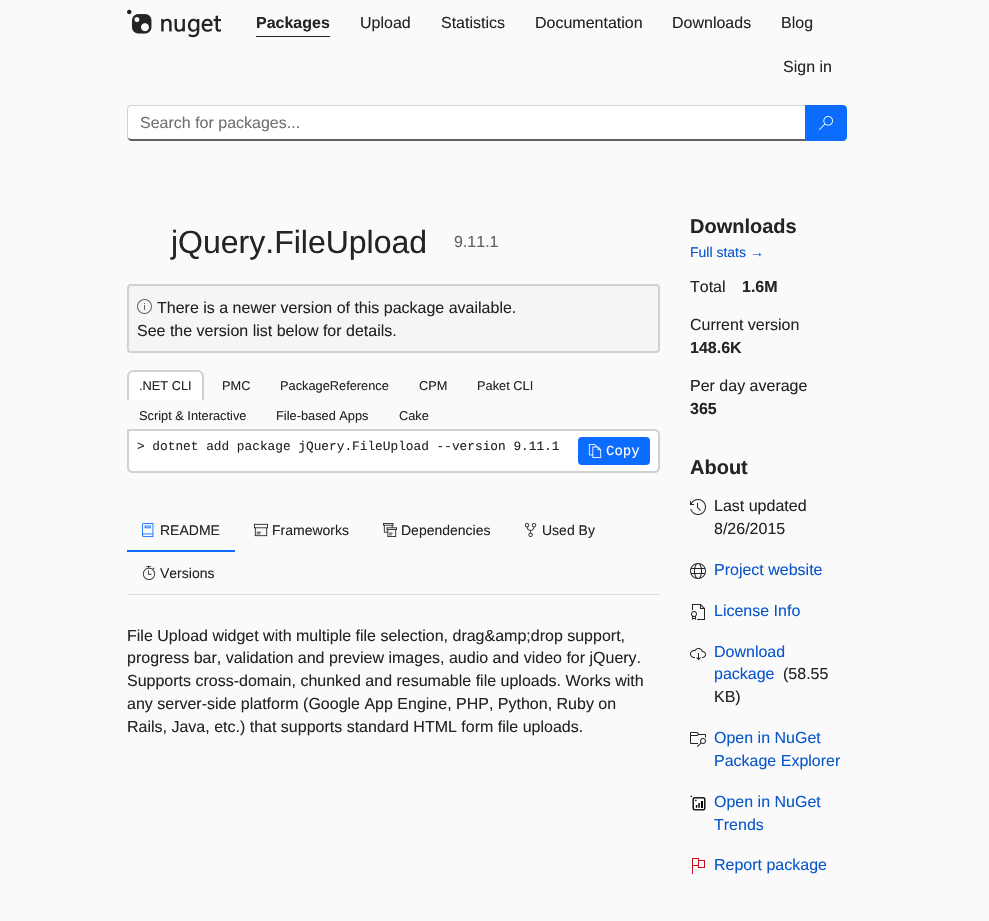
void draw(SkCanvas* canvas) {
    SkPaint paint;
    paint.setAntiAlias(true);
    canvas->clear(0xFFFAFAFA);
    canvas->drawImageRect(SkImages::DeferredFromEncodedData(SkData::MakeFromFileName("img1.png")), SkRect::MakeXYWH(127, 9, 94, 29), SkSamplingOptions());
    SkFont font1(fontMgr->matchFamilyStyle("Liberation Sans", SkFontStyle::Bold()), 16);
    font1.setSubpixel(true);
    paint.setColor(0xFF242424);
    canvas->drawString("Packages", 256, 28, font1, paint);
    canvas->drawRect(SkRect::MakeXYWH(256, 36, 74, 1), paint);
    SkFont font2(fontMgr->matchFamilyStyle("Liberation Sans", SkFontStyle::Normal()), 16);
    font2.setSubpixel(true);
    canvas->drawString("Upload", 360, 28, font2, paint);
    canvas->drawString("Statistics", 441, 28, font2, paint);
    canvas->drawString("Documentation", 535, 28, font2, paint);
    canvas->drawString("Downloads", 672, 28, font2, paint);
    canvas->drawString("Blog", 781, 28, font2, paint);
    canvas->drawString("Sign in", 783, 72, font2, paint);
    paint.setColor(0xFFFFFFFF);
    canvas->drawPath(SkPathBuilder().moveTo(131, 106).lineTo(805, 106).lineTo(805, 139).lineTo(131, 139).cubicTo(129, 139, 128, 138, 128, 137).lineTo(128, 109).cubicTo(128, 107, 129, 106, 131, 106).close().detach(), paint);
    paint.setColor(0xFFD1D1D1);
    canvas->drawPath(SkPathBuilder().moveTo(131, 105).lineTo(128, 106).lineTo(129, 107).lineTo(131, 106).lineTo(805, 106).lineTo(806, 105).close().detach(), paint);
    paint.setColor(0xFF616161);
    canvas->drawPath(SkPathBuilder().moveTo(806, 141).lineTo(805, 139).lineTo(131, 139).lineTo(128, 138).lineTo(128, 139).cubicTo(129, 140, 130, 141, 131, 141).close().detach(), paint);
    paint.setColor(0xFFD1D1D1);
    canvas->drawPath(SkPathBuilder().moveTo(127, 109).lineTo(127, 137).cubicTo(127, 138, 127.5f, 138.5f, 128, 139.5f).lineTo(128.5f, 138).lineTo(128, 137).lineTo(128, 108.5f).lineTo(129, 107).lineTo(128, 106).cubicTo(127.5f, 107, 127, 108, 127, 109).close().detach(), paint);
    paint.setColor(0xFF707070);
    canvas->drawString("Search for packages...", 140, 128, font2, paint);
    paint.setColor(0xFF0B6CFF);
    canvas->drawPath(SkPathBuilder().moveTo(805, 105).lineTo(843, 105).cubicTo(845, 105, 847, 107, 847, 109).lineTo(847, 137).cubicTo(847, 139, 845, 141, 843, 141).lineTo(805, 141).close().detach(), paint);
    canvas->drawImageRect(SkImages::DeferredFromEncodedData(SkData::MakeFromFileName("img2.png")), SkRect::MakeXYWH(819, 116, 14, 14), SkSamplingOptions());
    SkFont font3(fontMgr->matchFamilyStyle("Liberation Sans", SkFontStyle::Normal()), 32);
    font3.setSubpixel(true);
    paint.setColor(0xFF242424);
    canvas->drawString("jQuery.FileUpload", 171, 253, font3, paint);
    paint.setColor(0xFF616161);
    canvas->drawString("9.11.1", 454, 247, font2, paint);
    paint.setColor(0xFFF5F5F5);
    canvas->drawRoundRect(SkRect::MakeXYWH(128, 285, 531, 67), 3, 3, paint);
    paint.setStyle(SkPaint::kStroke_Style);
    paint.setStrokeWidth(2);
    paint.setColor(0xFFD1D1D1);
    canvas->drawRoundRect(SkRect::MakeXYWH(128, 285, 531, 67), 3, 3, paint);
    canvas->drawImageRect(SkImages::DeferredFromEncodedData(SkData::MakeFromFileName("img3.png")), SkRect::MakeXYWH(137, 299, 15, 15), SkSamplingOptions());
    paint.setStyle(SkPaint::kFill_Style);
    paint.setColor(0xFF242424);
    canvas->drawString("There is a newer version of this package available.", 157, 313, font2, paint);
    canvas->drawString("See the version list below for details.", 137, 336, font2, paint);
    paint.setColor(0xFFFFFFFF);
    canvas->drawPath(SkPathBuilder().moveTo(133, 370).lineTo(198, 370).cubicTo(201.5f, 370, 204, 372.5f, 204, 376).lineTo(204, 400).lineTo(127, 400).lineTo(127, 376).cubicTo(127, 372.5f, 129.5f, 370, 133, 370).close().detach(), paint);
    paint.setColor(0xFFD1D1D1);
    canvas->drawPath(SkPathBuilder(SkPathFillType::kEvenOdd).moveTo(133, 370).lineTo(198, 370).cubicTo(201, 370, 204, 373, 204, 376).lineTo(204, 400).lineTo(127, 400).lineTo(127, 376).cubicTo(127, 373, 130, 370, 133, 370).close().moveTo(133, 372).lineTo(198, 372).cubicTo(200, 372, 202, 374, 202, 376).lineTo(202, 400).lineTo(129, 400).lineTo(129, 376).cubicTo(129, 374, 131, 372, 133, 372).close().detach(), paint);
    SkFont font4(fontMgr->matchFamilyStyle("Liberation Sans", SkFontStyle::Normal()), 12.8f);
    font4.setSubpixel(true);
    paint.setColor(0xFF242424);
    canvas->drawString(".NET CLI", 139, 390, font4, paint);
    canvas->drawString("PMC", 222, 390, font4, paint);
    canvas->drawString("PackageReference", 280, 390, font4, paint);
    canvas->drawString("CPM", 419, 390, font4, paint);
    canvas->drawString("Paket CLI", 477, 390, font4, paint);
    canvas->drawString("Script & Interactive", 139, 420, font4, paint);
    canvas->drawString("File-based Apps", 276, 420, font4, paint);
    canvas->drawString("Cake", 399, 420, font4, paint);
    paint.setColor(0xFFFFFFFF);
    canvas->drawPath(SkPathBuilder().moveTo(128, 430).lineTo(654, 430).cubicTo(657, 430, 659, 432, 659, 435).lineTo(659, 467).cubicTo(659, 470, 657, 472, 654, 472).lineTo(133, 472).cubicTo(130, 472, 128, 470, 128, 467).close().detach(), paint);
    paint.setStyle(SkPaint::kStroke_Style);
    paint.setColor(0xFFD1D1D1);
    canvas->drawPath(SkPathBuilder().moveTo(128, 430).lineTo(654, 430).cubicTo(657, 430, 659, 432, 659, 435).lineTo(659, 467).cubicTo(659, 470, 657, 472, 654, 472).lineTo(133, 472).cubicTo(130, 472, 128, 470, 128, 467).close().detach(), paint);
    SkFont font5(fontMgr->matchFamilyStyle("Liberation Mono", SkFontStyle::Normal()), 12.8f);
    font5.setSubpixel(true);
    paint.setStyle(SkPaint::kFill_Style);
    paint.setColor(0xFF242424);
    canvas->drawString("> dotnet add package jQuery.FileUpload --version 9.11.1", 137, 450, font5, paint);
    paint.setColor(0xFF0B6CFF);
    canvas->drawRoundRect(SkRect::MakeXYWH(578, 437, 72, 28), 4, 4, paint);
    canvas->drawImageRect(SkImages::DeferredFromEncodedData(SkData::MakeFromFileName("img4.png")), SkRect::MakeXYWH(588, 444, 14, 14), SkSamplingOptions());
    SkFont font6(fontMgr->matchFamilyStyle("Liberation Mono", SkFontStyle::Normal()), 14);
    font6.setSubpixel(true);
    paint.setColor(0xFFFFFFFF);
    canvas->drawString("Copy", 606, 455, font6, paint);
    paint.setColor(0xFFDDDDDD);
    canvas->drawRect(SkRect::MakeXYWH(127, 594, 533, 1), paint);
    paint.setColor(0xFF0B6CFF);
    canvas->drawRect(SkRect::MakeXYWH(127, 550, 108, 2), paint);
    canvas->drawImageRect(SkImages::DeferredFromEncodedData(SkData::MakeFromFileName("img5.png")), SkRect::MakeXYWH(142, 523, 12, 14), SkSamplingOptions());
    SkFont font7(fontMgr->matchFamilyStyle("Liberation Sans", SkFontStyle::Normal()), 14);
    font7.setSubpixel(true);
    paint.setColor(0xFF242424);
    canvas->drawString("README", 160, 535, font7, paint);
    canvas->drawImageRect(SkImages::DeferredFromEncodedData(SkData::MakeFromFileName("img6.png")), SkRect::MakeXYWH(254, 523, 14, 14), SkSamplingOptions());
    canvas->drawString("Frameworks", 272, 535, font7, paint);
    canvas->drawImageRect(SkImages::DeferredFromEncodedData(SkData::MakeFromFileName("img7.png")), SkRect::MakeXYWH(383, 523, 14, 14), SkSamplingOptions());
    canvas->drawString("Dependencies", 401, 535, font7, paint);
    canvas->drawImageRect(SkImages::DeferredFromEncodedData(SkData::MakeFromFileName("img8.png")), SkRect::MakeXYWH(524, 523, 13, 14), SkSamplingOptions());
    canvas->drawString("Used By", 542, 535, font7, paint);
    canvas->drawImageRect(SkImages::DeferredFromEncodedData(SkData::MakeFromFileName("img9.png")), SkRect::MakeXYWH(142, 566, 14, 14), SkSamplingOptions());
    canvas->drawString("Versions", 160, 578, font7, paint);
    canvas->drawString("File Upload widget with multiple file selection, drag&amp;drop support,", 127, 641, font2, paint);
    canvas->drawString("progress bar, validation and preview images, audio and video for jQuery.", 127, 663, font2, paint);
    canvas->drawString("Supports cross-domain, chunked and resumable file uploads. Works with", 127, 686, font2, paint);
    canvas->drawString("any server-side platform (Google App Engine, PHP, Python, Ruby on", 127, 709, font2, paint);
    canvas->drawString("Rails, Java, etc.) that supports standard HTML form file uploads.", 127, 732, font2, paint);
    SkFont font8(fontMgr->matchFamilyStyle("Liberation Sans", SkFontStyle::Bold()), 20);
    font8.setSubpixel(true);
    canvas->drawString("Downloads", 690, 233, font8, paint);
    paint.setColor(0xFF0956CC);
    canvas->drawString("Full stats →", 690, 257, font7, paint);
    paint.setColor(0xFF242424);
    canvas->drawString("Total", 690, 292, font2, paint);
    canvas->drawString("1.6M", 742, 292, font1, paint);
    canvas->drawString("Current version", 690, 330, font2, paint);
    canvas->drawString("148.6K", 690, 353, font1, paint);
    canvas->drawString("Per day average", 690, 391, font2, paint);
    canvas->drawString("365", 690, 414, font1, paint);
    canvas->drawString("About", 690, 474, font8, paint);
    canvas->drawImageRect(SkImages::DeferredFromEncodedData(SkData::MakeFromFileName("img10.png")), SkRect::MakeXYWH(690, 499, 16, 16), SkSamplingOptions());
    canvas->drawString("Last updated", 714, 511, font2, paint);
    canvas->drawString("8/26/2015", 714, 534, font2, paint);
    canvas->drawImageRect(SkImages::DeferredFromEncodedData(SkData::MakeFromFileName("img11.png")), SkRect::MakeXYWH(690, 563, 16, 16), SkSamplingOptions());
    paint.setColor(0xFF0956CC);
    canvas->drawString("Project website", 714, 575, font2, paint);
    canvas->drawImageRect(SkImages::DeferredFromEncodedData(SkData::MakeFromFileName("img12.png")), SkRect::MakeXYWH(691, 604, 14, 16), SkSamplingOptions());
    canvas->drawString("License Info", 714, 616, font2, paint);
    canvas->drawImageRect(SkImages::DeferredFromEncodedData(SkData::MakeFromFileName("img13.png")), SkRect::MakeXYWH(690, 648, 16, 13), SkSamplingOptions());
    canvas->drawString("Download", 714, 657, font2, paint);
    canvas->drawString("package", 714, 679, font2, paint);
    paint.setColor(0xFF242424);
    canvas->drawString("(58.55", 783, 679, font2, paint);
    canvas->drawString("KB)", 714, 702, font2, paint);
    canvas->drawImageRect(SkImages::DeferredFromEncodedData(SkData::MakeFromFileName("img14.png")), SkRect::MakeXYWH(690, 732, 16, 15), SkSamplingOptions());
    paint.setColor(0xFF0956CC);
    canvas->drawString("Open in NuGet", 714, 743, font2, paint);
    canvas->drawString("Package Explorer", 714, 766, font2, paint);
    canvas->drawImageRect(SkImages::DeferredFromEncodedData(SkData::MakeFromFileName("img15.png")), SkRect::MakeXYWH(690, 795, 16, 16), SkSamplingOptions());
    canvas->drawString("Open in NuGet", 714, 807, font2, paint);
    canvas->drawString("Trends", 714, 830, font2, paint);
    canvas->drawImageRect(SkImages::DeferredFromEncodedData(SkData::MakeFromFileName("img16.png")), SkRect::MakeXYWH(692, 858, 13, 16), SkSamplingOptions());
    canvas->drawString("Report package", 714, 870, font2, paint);
}
